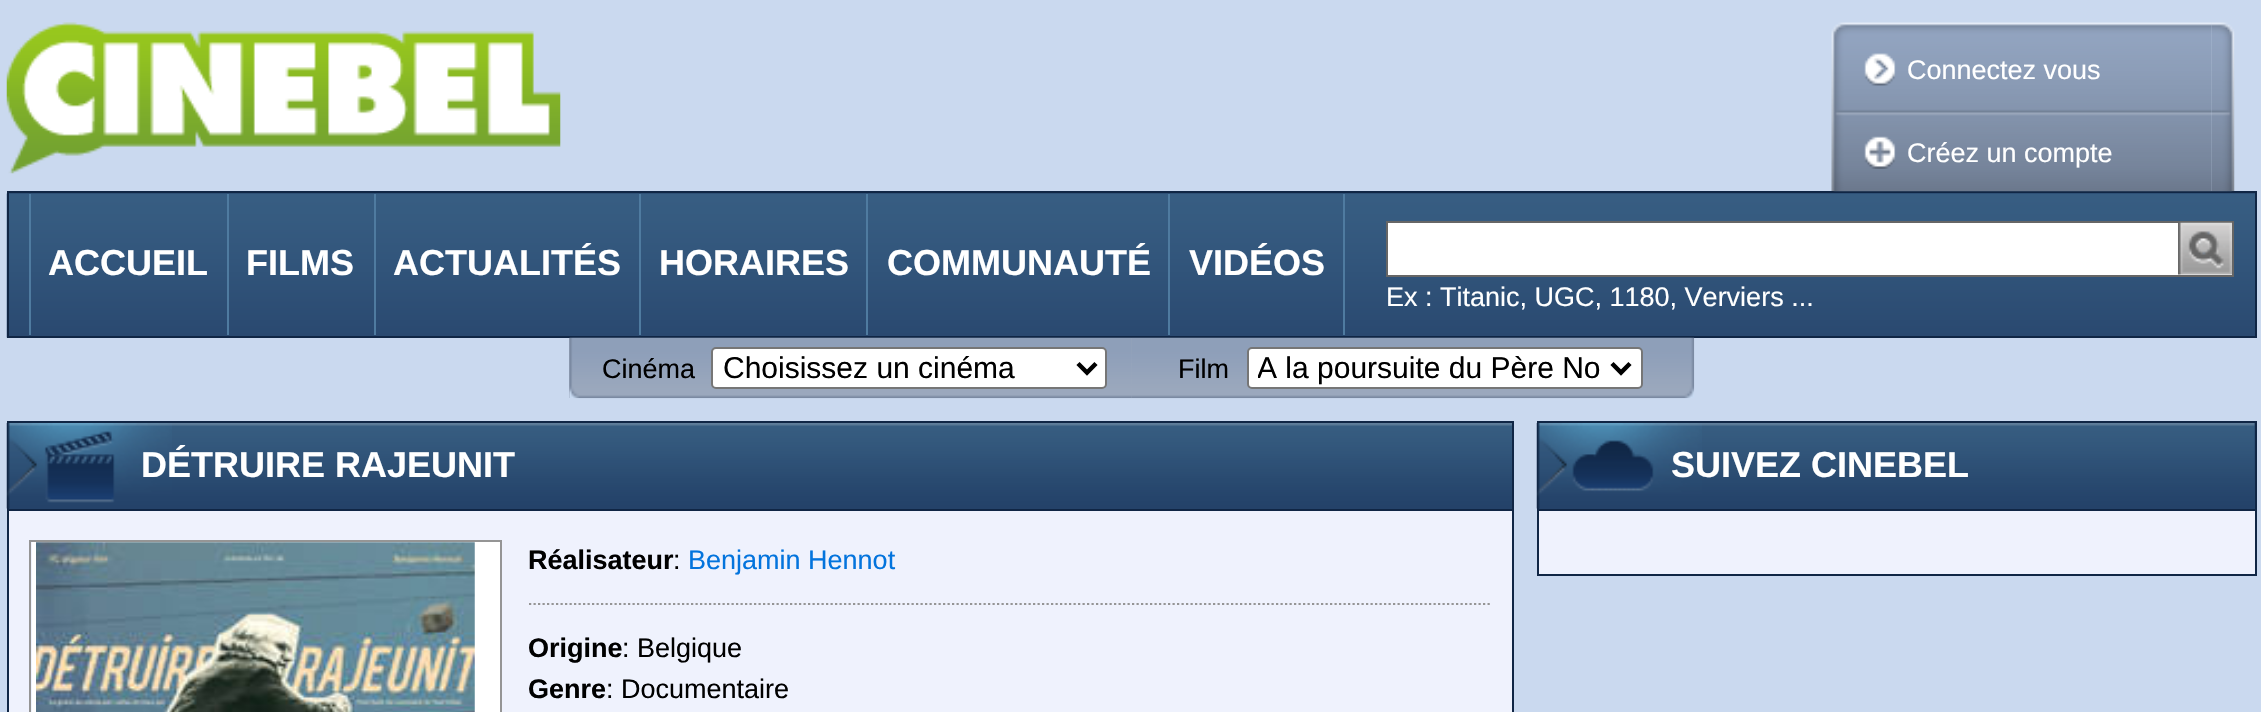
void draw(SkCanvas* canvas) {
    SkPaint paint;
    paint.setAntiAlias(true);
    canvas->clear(0xFFCAD9EF);
    canvas->drawImageRect(SkImages::DeferredFromEncodedData(SkData::MakeFromFileName("img1.png")), SkRect::MakeXYWH(6, 22, 555, 152), SkSamplingOptions());
    paint.setColor(0xFF244269);
    canvas->drawRect(SkRect::MakeXYWH(9, 193, 2246, 1), paint);
    canvas->drawImageRect(SkImages::DeferredFromEncodedData(SkData::MakeFromFileName("img6.png")), SkRect::MakeXYWH(6, 193, 2249, 145), SkSamplingOptions());
    paint.setStyle(SkPaint::kStroke_Style);
    paint.setStrokeWidth(2);
    paint.setColor(0xFF102645);
    canvas->drawRect(SkRect::MakeXYWH(8, 192, 2248, 145), paint);
    canvas->drawImageRect(SkImages::DeferredFromEncodedData(SkData::MakeFromFileName("img2.png")), SkRect::MakeXYWH(1831, 22, 381, 170), SkSamplingOptions());
    canvas->drawImageRect(SkImages::DeferredFromEncodedData(SkData::MakeFromFileName("img3.png")), SkRect::MakeXYWH(1864, 53, 32, 33), SkSamplingOptions());
    SkFont font1(fontMgr->matchFamilyStyle("Liberation Sans", SkFontStyle::Normal()), 27);
    font1.setSubpixel(true);
    paint.setStyle(SkPaint::kFill_Style);
    paint.setColor(0xFFFFFFFF);
    canvas->drawString("Connectez vous", 1907, 79, font1, paint);
    canvas->drawImageRect(SkImages::DeferredFromEncodedData(SkData::MakeFromFileName("img4.png")), SkRect::MakeXYWH(1864, 136, 32, 33), SkSamplingOptions());
    canvas->drawString("Créez un compte", 1907, 162, font1, paint);
    canvas->drawImageRect(SkImages::DeferredFromEncodedData(SkData::MakeFromFileName("img5.png")), SkRect::MakeXYWH(2211, 22, 24, 170), SkSamplingOptions());
    paint.setColor(0xFF4F7BA0);
    canvas->drawRect(SkRect::MakeXYWH(227, 194, 2, 141), paint);
    canvas->drawRect(SkRect::MakeXYWH(29, 194, 2, 141), paint);
    SkFont font2(fontMgr->matchFamilyStyle("Liberation Sans", SkFontStyle::Bold()), 36);
    font2.setSubpixel(true);
    paint.setColor(0xFFFFFFFF);
    canvas->drawString("ACCUEIL", 48, 275, font2, paint);
    paint.setColor(0xFF4F7BA0);
    canvas->drawRect(SkRect::MakeXYWH(374, 194, 2, 141), paint);
    paint.setColor(0xFFFFFFFF);
    canvas->drawString("FILMS", 246, 275, font2, paint);
    paint.setColor(0xFF4F7BA0);
    canvas->drawRect(SkRect::MakeXYWH(639, 194, 2, 141), paint);
    paint.setColor(0xFFFFFFFF);
    canvas->drawString("ACTUALITÉS", 393, 275, font2, paint);
    paint.setColor(0xFF4F7BA0);
    canvas->drawRect(SkRect::MakeXYWH(866, 194, 2, 141), paint);
    paint.setColor(0xFFFFFFFF);
    canvas->drawString("HORAIRES", 659, 275, font2, paint);
    paint.setColor(0xFF4F7BA0);
    canvas->drawRect(SkRect::MakeXYWH(1168, 194, 2, 141), paint);
    paint.setColor(0xFFFFFFFF);
    canvas->drawString("COMMUNAUTÉ", 887, 275, font2, paint);
    paint.setColor(0xFF4F7BA0);
    canvas->drawRect(SkRect::MakeXYWH(1343, 194, 2, 141), paint);
    paint.setColor(0xFFFFFFFF);
    canvas->drawString("VIDÉOS", 1189, 275, font2, paint);
    canvas->drawRect(SkRect::MakeXYWH(1387, 222, 846, 54), paint);
    paint.setStyle(SkPaint::kStroke_Style);
    paint.setColor(0xFF666666);
    canvas->drawRect(SkRect::MakeXYWH(1387, 222, 846, 54), paint);
    canvas->drawImageRect(SkImages::DeferredFromEncodedData(SkData::MakeFromFileName("img7.png")), SkRect::MakeXYWH(2178, 222, 54, 53), SkSamplingOptions());
    paint.setStyle(SkPaint::kFill_Style);
    paint.setColor(0xFFFFFFFF);
    canvas->drawString("Ex : Titanic, UGC, 1180, Verviers ...", 1386, 306, font1, paint);
    paint.setColor(0xFF9BA8BD);
    canvas->drawRect(SkRect::MakeXYWH(569, 338, 563, 60), paint);
    canvas->drawImageRect(SkImages::DeferredFromEncodedData(SkData::MakeFromFileName("img8.png")), SkRect::MakeXYWH(569, 337, 563, 62), SkSamplingOptions());
    paint.setColor(0xFF000000);
    canvas->drawString("Cinéma", 602, 378, font1, paint);
    paint.setColor(0xFFFFFFFF);
    canvas->drawRoundRect(SkRect::MakeXYWH(712, 348, 394, 40), 4, 4, paint);
    paint.setStyle(SkPaint::kStroke_Style);
    paint.setColor(0xFF767676);
    canvas->drawRoundRect(SkRect::MakeXYWH(712, 348, 394, 40), 4, 4, paint);
    paint.setStrokeWidth(4.5f);
    paint.setColor(0xFF000000);
    canvas->drawPath(SkPathBuilder().moveTo(1078, 363.5f).lineTo(1087, 372.5f).lineTo(1096, 363.5f).detach(), paint);
    SkFont font3(fontMgr->matchFamilyStyle("Liberation Sans", SkFontStyle::Normal()), 30);
    font3.setSubpixel(true);
    paint.setStyle(SkPaint::kFill_Style);
    canvas->drawString("Choisissez un cinéma", 723, 378, font3, paint);
    canvas->drawImageRect(SkImages::DeferredFromEncodedData(SkData::MakeFromFileName("img9.png")), SkRect::MakeXYWH(1131, 337, 564, 62), SkSamplingOptions());
    canvas->drawString("Film", 1178, 378, font1, paint);
    paint.setColor(0xFFFFFFFF);
    canvas->drawRoundRect(SkRect::MakeXYWH(1248, 348, 394, 40), 4, 4, paint);
    paint.setStyle(SkPaint::kStroke_Style);
    paint.setStrokeWidth(2);
    paint.setColor(0xFF767676);
    canvas->drawRoundRect(SkRect::MakeXYWH(1248, 348, 394, 40), 4, 4, paint);
    paint.setStrokeWidth(4.5f);
    paint.setColor(0xFF000000);
    canvas->drawPath(SkPathBuilder().moveTo(1612, 363.5f).lineTo(1621, 372.5f).lineTo(1630, 363.5f).detach(), paint);
    canvas->save();
    canvas->clipRect(SkRect::MakeXYWH(1258, 349, 346, 38));
    paint.setStyle(SkPaint::kFill_Style);
    canvas->drawString("A la poursuite du Père No", 1257, 378, font3, paint);
    canvas->restore();
    paint.setStyle(SkPaint::kStroke_Style);
    paint.setStrokeWidth(2);
    paint.setColor(0xFF102645);
    canvas->drawRect(SkRect::MakeXYWH(8, 422, 1505, 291), paint);
    canvas->drawImageRect(SkImages::DeferredFromEncodedData(SkData::MakeFromFileName("img10.png")), SkRect::MakeXYWH(9, 423, 1503, 86), SkSamplingOptions());
    paint.setStyle(SkPaint::kFill_Style);
    canvas->drawRect(SkRect::MakeXYWH(9, 509, 1503, 2), paint);
    canvas->drawImageRect(SkImages::DeferredFromEncodedData(SkData::MakeFromFileName("img11.png")), SkRect::MakeXYWH(6, 423, 166, 86), SkSamplingOptions());
    paint.setColor(0xFFFFFFFF);
    canvas->drawString("DÉTRUIRE RAJEUNIT", 141, 477, font2, paint);
    paint.setColor(0xFFEFF2FD);
    canvas->drawRect(SkRect::MakeXYWH(9, 511, 1503, 201), paint);
    paint.setColor(0xFFFFFFFF);
    canvas->drawRect(SkRect::MakeXYWH(32, 542, 468, 170), paint);
    paint.setColor(0xFF959595);
    canvas->drawRect(SkRect::MakeXYWH(29, 540, 473, 2), paint);
    canvas->drawRect(SkRect::MakeXYWH(500, 540, 2, 172), paint);
    canvas->drawRect(SkRect::MakeXYWH(29, 540, 2, 172), paint);
    canvas->drawImageRect(SkImages::DeferredFromEncodedData(SkData::MakeFromFileName("img12.png")), SkRect::MakeXYWH(36, 542, 439, 170), SkSamplingOptions());
    paint.setStyle(SkPaint::kStroke_Style);
    paint.setStrokeWidth(2.2f);
    paint.setPathEffect(SkDashPathEffect::Make({{2.25f, 2.25f}}, 0));
    canvas->drawPath(SkPathBuilder().moveTo(529, 604).lineTo(1492, 604).detach(), paint);
    paint.setPathEffect(nullptr);
    SkFont font4(fontMgr->matchFamilyStyle("Liberation Sans", SkFontStyle::Bold()), 27);
    font4.setSubpixel(true);
    paint.setStyle(SkPaint::kFill_Style);
    paint.setColor(0xFF000000);
    canvas->drawString("Réalisateur", 528, 569, font4, paint);
    canvas->drawString(":", 673, 569, font1, paint);
    paint.setColor(0xFF0374DD);
    canvas->drawString("Benjamin Hennot", 688, 569, font1, paint);
    canvas->save();
    canvas->clipRect(SkRect::MakeXYWH(529, 628, 963, 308));
    paint.setColor(0xFF000000);
    canvas->drawString("Origine", 528, 657, font4, paint);
    canvas->restore();
    canvas->drawString(": Belgique", 622, 657, font1, paint);
    canvas->save();
    canvas->clipRect(SkRect::MakeXYWH(529, 628, 963, 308));
    canvas->drawString("Genre", 528, 698, font4, paint);
    canvas->restore();
    canvas->drawString(": Documentaire", 606, 698, font1, paint);
    paint.setStyle(SkPaint::kStroke_Style);
    paint.setStrokeWidth(2);
    paint.setColor(0xFF102645);
    canvas->drawRect(SkRect::MakeXYWH(1538, 422, 718, 153), paint);
    paint.setStyle(SkPaint::kFill_Style);
    paint.setColor(0xFF26466C);
    canvas->drawRect(SkRect::MakeXYWH(2254, 423, 1, 86), paint);
    canvas->drawImageRect(SkImages::DeferredFromEncodedData(SkData::MakeFromFileName("img13.png")), SkRect::MakeXYWH(1539, 423, 716, 86), SkSamplingOptions());
    paint.setColor(0xFF102645);
    canvas->drawRect(SkRect::MakeXYWH(1539, 509, 716, 2), paint);
    canvas->drawImageRect(SkImages::DeferredFromEncodedData(SkData::MakeFromFileName("img14.png")), SkRect::MakeXYWH(1536, 423, 166, 86), SkSamplingOptions());
    paint.setColor(0xFFFFFFFF);
    canvas->drawString("SUIVEZ CINEBEL", 1671, 477, font2, paint);
    paint.setColor(0xFFEFF2FD);
    canvas->drawRect(SkRect::MakeXYWH(1539, 511, 716, 63), paint);
}
